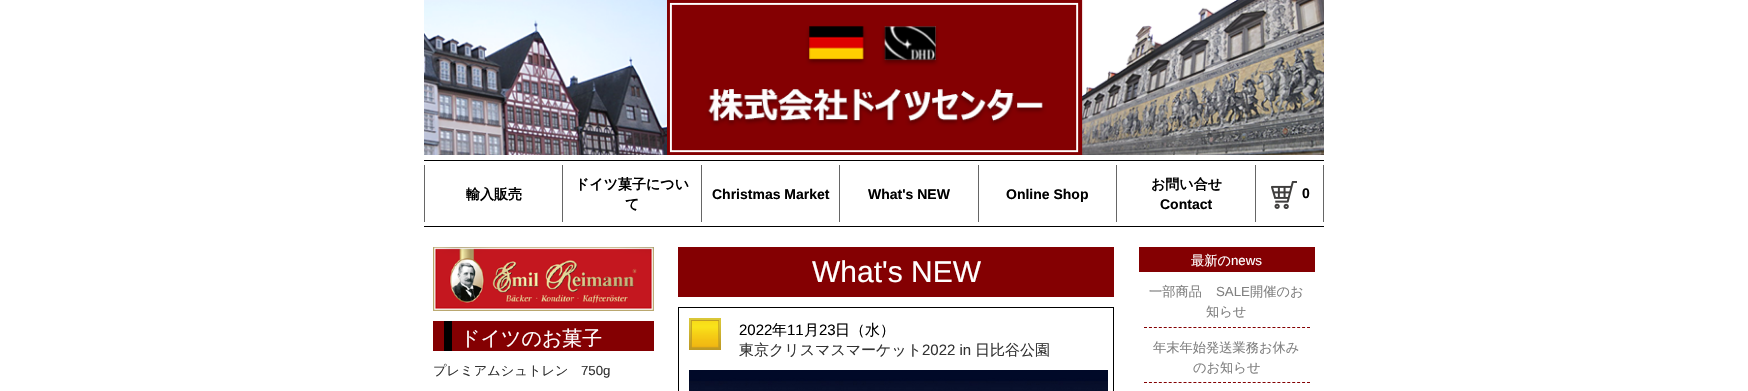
void draw(SkCanvas* canvas) {
    SkPaint paint;
    paint.setAntiAlias(true);
    canvas->clear(0xFFFFFFFF);
    canvas->drawImageRect(SkImages::DeferredFromEncodedData(SkData::MakeFromFileName("img1.png")), SkRect::MakeXYWH(424, 0, 900, 155), SkSamplingOptions());
    canvas->drawImageRect(SkImages::DeferredFromEncodedData(SkData::MakeFromFileName("img2.png")), SkRect::MakeXYWH(667, 0, 413, 155), SkSamplingOptions());
    paint.setColor(0xFF000000);
    canvas->drawRect(SkRect::MakeXYWH(424, 160, 900, 1), paint);
    canvas->drawRect(SkRect::MakeXYWH(424, 226, 900, 1), paint);
    paint.setColor(0xFF666666);
    canvas->drawRect(SkRect::MakeXYWH(424, 165, 1, 57), paint);
    SkFont font1(fontMgr->matchFamilyStyle("WenQuanYi Zen Hei", SkFontStyle::Bold()), 14);
    font1.setSubpixel(true);
    paint.setColor(0xFF000000);
    canvas->drawString("輸入販売", 466, 199, font1, paint);
    paint.setColor(0xFF666666);
    canvas->drawRect(SkRect::MakeXYWH(562, 165, 1, 57), paint);
    paint.setColor(0xFF000000);
    canvas->drawString("ドイツ菓子につい", 575, 189, font1, paint);
    canvas->drawString("て", 625, 209, font1, paint);
    paint.setColor(0xFF666666);
    canvas->drawRect(SkRect::MakeXYWH(701, 165, 1, 57), paint);
    SkFont font2(fontMgr->matchFamilyStyle("Liberation Sans", SkFontStyle::Bold()), 14);
    font2.setSubpixel(true);
    paint.setColor(0xFF000000);
    canvas->drawString("Christmas Market", 712, 199, font2, paint);
    paint.setColor(0xFF666666);
    canvas->drawRect(SkRect::MakeXYWH(839, 165, 1, 57), paint);
    paint.setColor(0xFF000000);
    canvas->drawString("What's NEW", 868, 199, font2, paint);
    paint.setColor(0xFF666666);
    canvas->drawRect(SkRect::MakeXYWH(978, 165, 1, 57), paint);
    paint.setColor(0xFF000000);
    canvas->drawString("Online Shop", 1006, 199, font2, paint);
    paint.setColor(0xFF666666);
    canvas->drawRect(SkRect::MakeXYWH(1116, 165, 1, 57), paint);
    paint.setColor(0xFF000000);
    canvas->drawString("お問い合せ", 1151, 189, font1, paint);
    canvas->drawString("Contact", 1160, 209, font2, paint);
    paint.setColor(0xFF666666);
    canvas->drawRect(SkRect::MakeXYWH(1323, 165, 1, 57), paint);
    canvas->drawRect(SkRect::MakeXYWH(1255, 165, 1, 57), paint);
    canvas->drawImageRect(SkImages::DeferredFromEncodedData(SkData::MakeFromFileName("img3.png")), SkRect::MakeXYWH(1271, 181, 26, 28), SkSamplingOptions());
    paint.setColor(0xFF000000);
    canvas->drawString("0", 1302, 198, font2, paint);
    canvas->drawImageRect(SkImages::DeferredFromEncodedData(SkData::MakeFromFileName("img4.png")), SkRect::MakeXYWH(433, 247, 221, 64), SkSamplingOptions());
    paint.setColor(0xFF840002);
    canvas->drawRect(SkRect::MakeXYWH(433, 321, 221, 30), paint);
    paint.setColor(0xFF000000);
    canvas->drawRect(SkRect::MakeXYWH(444, 321, 8, 30), paint);
    SkFont font3(fontMgr->matchFamilyStyle("WenQuanYi Zen Hei", SkFontStyle(500, SkFontStyle::kNormal_Width, SkFontStyle::kUpright_Slant)), 20);
    font3.setSubpixel(true);
    paint.setColor(0xFFFFFFFF);
    canvas->drawString("ドイツのお菓子", 460, 345, font3, paint);
    SkFont font4(fontMgr->matchFamilyStyle("WenQuanYi Zen Hei", SkFontStyle(500, SkFontStyle::kNormal_Width, SkFontStyle::kUpright_Slant)), 13.25f);
    font4.setSubpixel(true);
    paint.setColor(0xFF333333);
    canvas->drawString("プレミアムシュトレン", 433, 375, font4, paint);
    SkFont font5(fontMgr->matchFamilyStyle("Liberation Sans", SkFontStyle::Normal()), 13.25f);
    font5.setSubpixel(true);
    canvas->drawString("750g", 581, 375, font5, paint);
    paint.setColor(0xFF840002);
    canvas->drawRect(SkRect::MakeXYWH(678, 247, 436, 50), paint);
    SkFont font6(fontMgr->matchFamilyStyle("Liberation Sans", SkFontStyle::Normal()), 30);
    font6.setSubpixel(true);
    paint.setColor(0xFFFFFFFF);
    canvas->drawString("What's NEW", 812, 282, font6, paint);
    paint.setStyle(SkPaint::kStroke_Style);
    paint.setStrokeWidth(1);
    paint.setColor(0xFF000000);
    canvas->drawRect(SkRect::MakeXYWH(678.5f, 307.5f, 435, 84), paint);
    canvas->drawImageRect(SkImages::DeferredFromEncodedData(SkData::MakeFromFileName("img5.png")), SkRect::MakeXYWH(689, 318, 32, 32), SkSamplingOptions());
    SkFont font7(fontMgr->matchFamilyStyle("Liberation Sans", SkFontStyle::Normal()), 15);
    font7.setSubpixel(true);
    paint.setStyle(SkPaint::kFill_Style);
    canvas->drawString("2022", 739, 335, font7, paint);
    SkFont font8(fontMgr->matchFamilyStyle("WenQuanYi Zen Hei", SkFontStyle(500, SkFontStyle::kNormal_Width, SkFontStyle::kUpright_Slant)), 15);
    font8.setSubpixel(true);
    canvas->drawString("年", 772, 335, font8, paint);
    canvas->drawString("11", 787, 335, font7, paint);
    canvas->drawString("月", 804, 335, font8, paint);
    canvas->drawString("23", 819, 335, font7, paint);
    canvas->drawString("日（水）", 835, 335, font8, paint);
    paint.setColor(0xFF333333);
    canvas->drawString("東京クリスマスマーケット", 739, 355, font8, paint);
    canvas->drawString("2022 in", 922, 355, font7, paint);
    canvas->drawString("日比谷公園", 975, 355, font8, paint);
    canvas->drawImageRect(SkImages::DeferredFromEncodedData(SkData::MakeFromFileName("img6.png")), SkRect::MakeXYWH(689, 370, 419, 21), SkSamplingOptions());
    paint.setColor(0xFF840002);
    canvas->drawRect(SkRect::MakeXYWH(1139, 247, 176, 25), paint);
    paint.setColor(0xFFFFFFFF);
    canvas->drawString("最新の", 1191, 265, font4, paint);
    canvas->drawString("news", 1231, 265, font5, paint);
    paint.setStyle(SkPaint::kStroke_Style);
    paint.setColor(0xFF840002);
    paint.setPathEffect(SkDashPathEffect::Make({{3, 1.94f}}, 0));
    canvas->drawPath(SkPathBuilder().moveTo(1144, 327.5f).lineTo(1310, 327.5f).detach(), paint);
    paint.setPathEffect(nullptr);
    paint.setStyle(SkPaint::kFill_Style);
    paint.setColor(0xFF808080);
    canvas->drawString("一部商品", 1149, 296, font4, paint);
    canvas->drawString("SALE", 1216, 296, font5, paint);
    canvas->drawString("開催のお", 1250, 296, font4, paint);
    canvas->drawString("知らせ", 1206, 316, font4, paint);
    paint.setStyle(SkPaint::kStroke_Style);
    paint.setColor(0xFF840002);
    paint.setPathEffect(SkDashPathEffect::Make({{3, 1.94f}}, 0));
    canvas->drawPath(SkPathBuilder().moveTo(1144, 382.5f).lineTo(1310, 382.5f).detach(), paint);
    paint.setPathEffect(nullptr);
    paint.setStyle(SkPaint::kFill_Style);
    paint.setColor(0xFF808080);
    canvas->drawString("年末年始発送業務お休み", 1153, 352, font4, paint);
    canvas->drawString("のお知らせ", 1193, 372, font4, paint);
}
